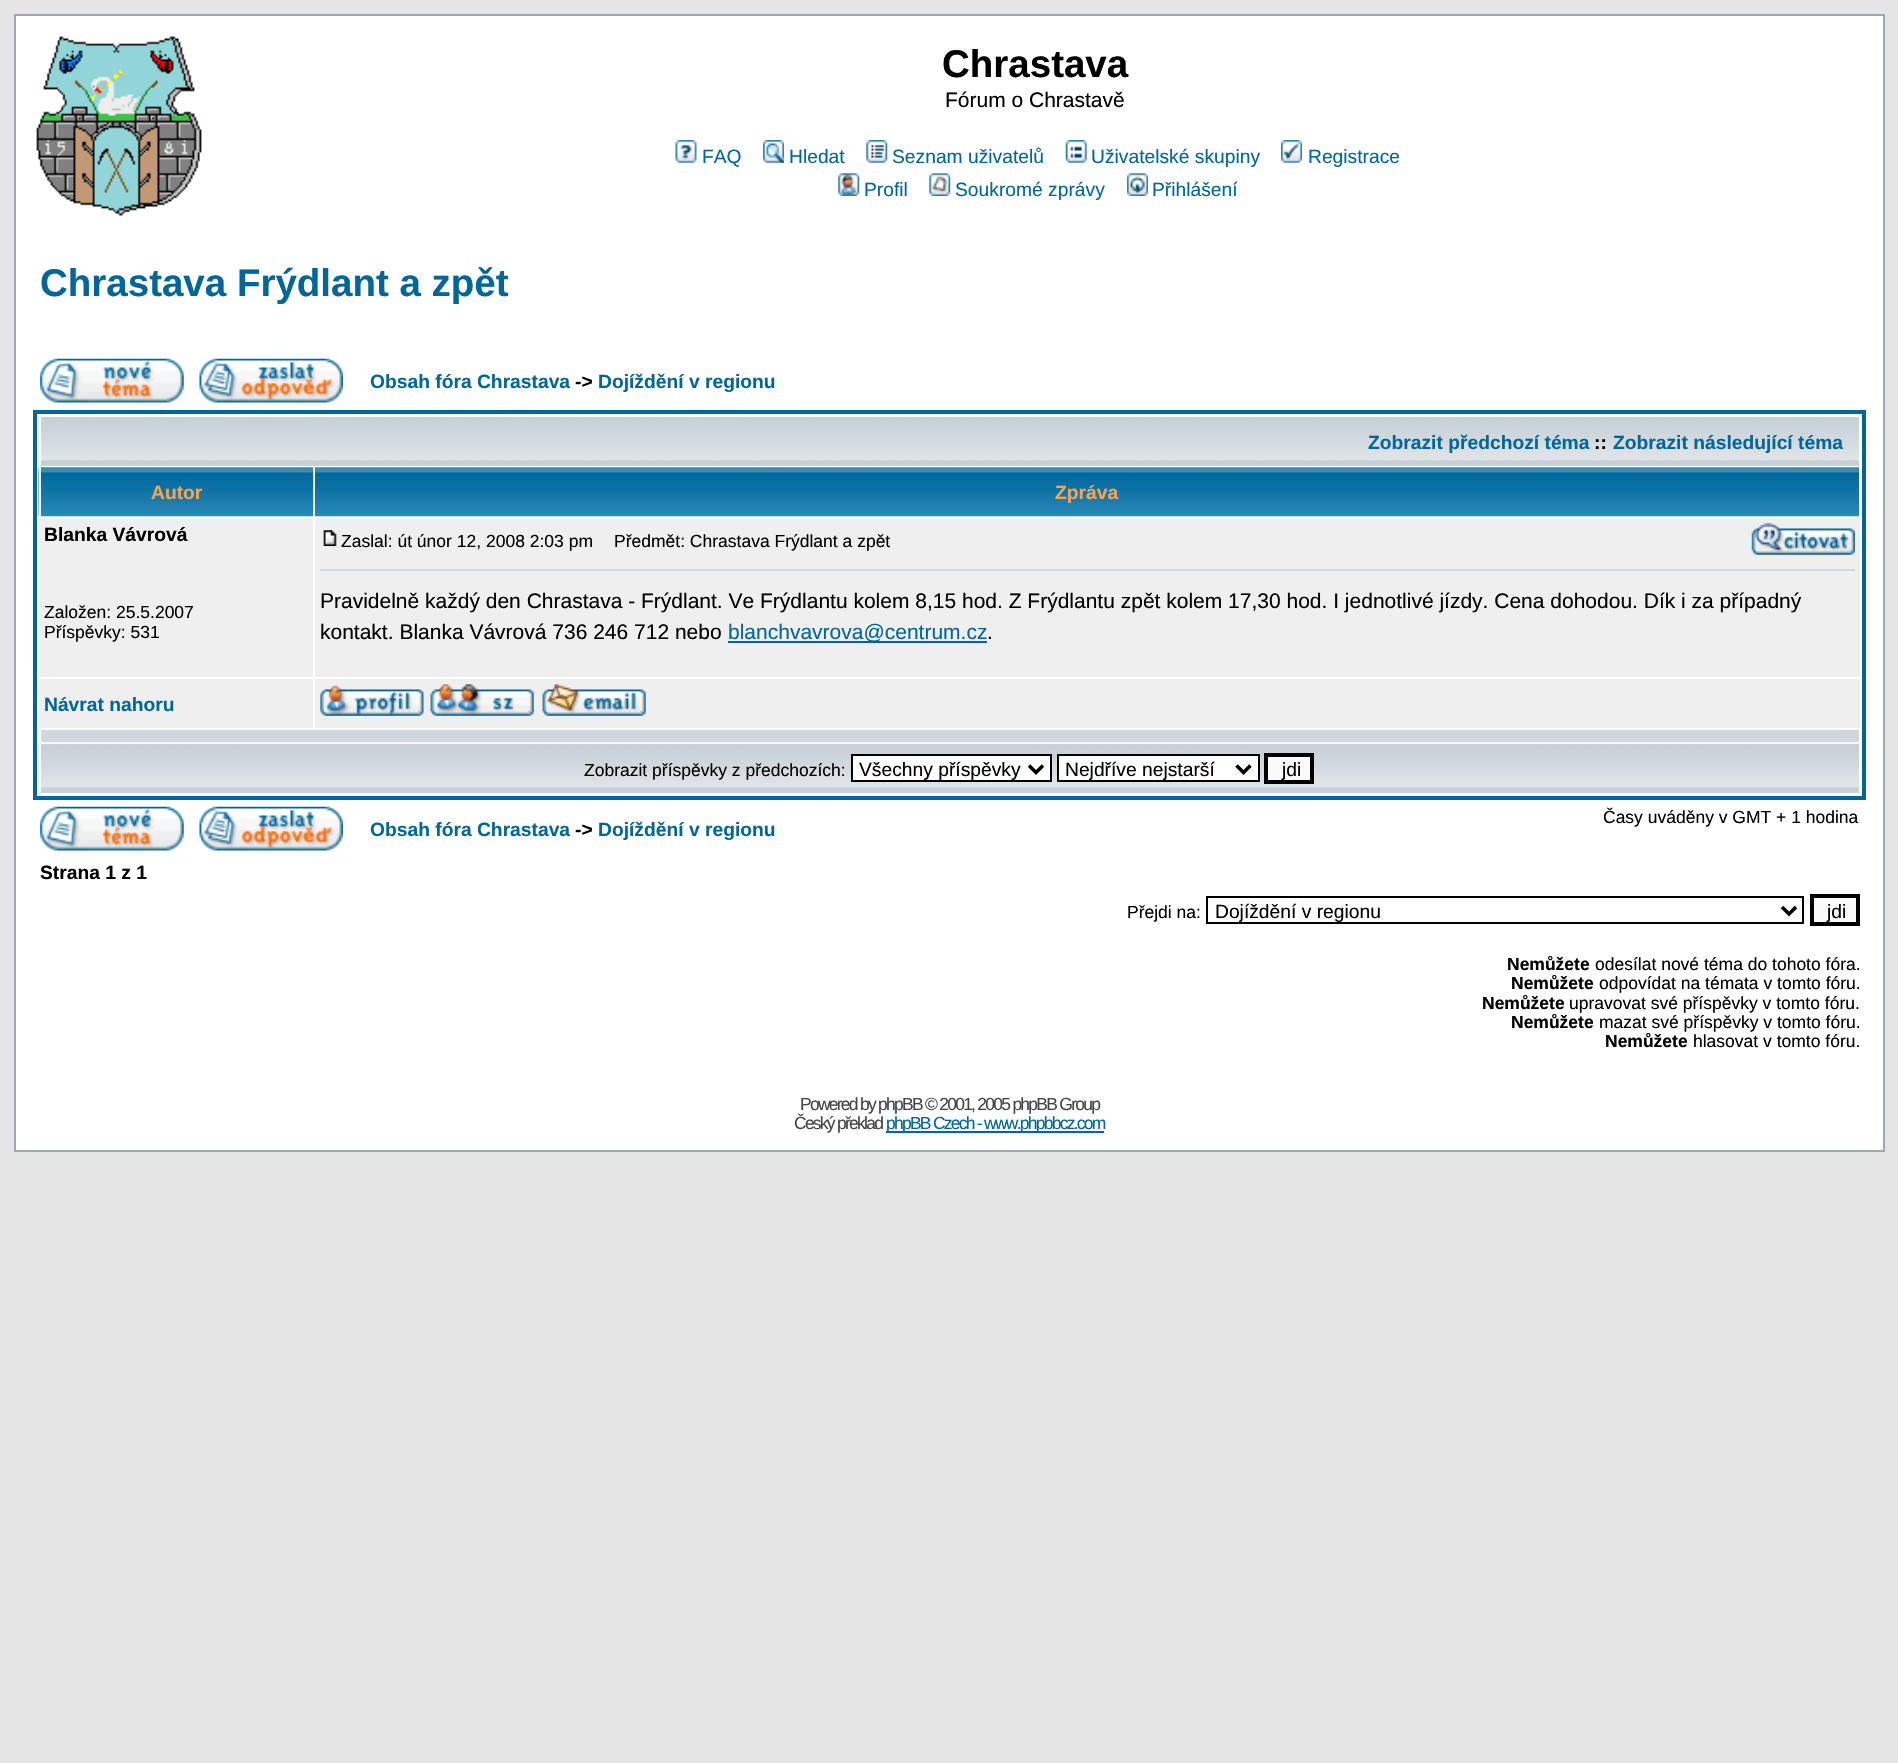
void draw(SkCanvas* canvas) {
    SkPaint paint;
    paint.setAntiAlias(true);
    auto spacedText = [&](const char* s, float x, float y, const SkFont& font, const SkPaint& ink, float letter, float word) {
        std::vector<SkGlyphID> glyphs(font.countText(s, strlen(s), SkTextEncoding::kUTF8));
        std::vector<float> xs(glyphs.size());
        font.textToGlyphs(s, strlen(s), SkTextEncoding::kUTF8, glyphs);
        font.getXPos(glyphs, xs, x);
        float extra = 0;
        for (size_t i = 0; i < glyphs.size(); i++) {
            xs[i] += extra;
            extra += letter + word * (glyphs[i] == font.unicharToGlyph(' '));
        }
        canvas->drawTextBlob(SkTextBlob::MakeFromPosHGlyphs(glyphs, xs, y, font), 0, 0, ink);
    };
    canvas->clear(0xFFE5E5E5);
    paint.setColor(0xFFFFFFFF);
    canvas->drawRect(SkRect::MakeXYWH(15, 15, 1869, 1136), paint);
    paint.setStyle(SkPaint::kStroke_Style);
    paint.setStrokeWidth(2);
    paint.setColor(0xFF98AAB1);
    canvas->drawRect(SkRect::MakeXYWH(15, 15, 1869, 1136), paint);
    canvas->drawImageRect(SkImages::DeferredFromEncodedData(SkData::MakeFromFileName("img1.png")), SkRect::MakeXYWH(36, 36, 166, 180), SkSamplingOptions());
    SkFont font1(fontMgr->matchFamilyStyle("Liberation Sans", SkFontStyle::Bold()), 38.5f);
    font1.setSubpixel(true);
    paint.setStyle(SkPaint::kFill_Style);
    paint.setColor(0xFF000000);
    canvas->drawString("Chrastava", 942, 77, font1, paint);
    SkFont font2(fontMgr->matchFamilyStyle("Liberation Sans", SkFontStyle::Normal()), 21);
    font2.setSubpixel(true);
    canvas->drawString("Fórum o Chrastavě", 945, 107, font2, paint);
    canvas->drawImageRect(SkImages::DeferredFromEncodedData(SkData::MakeFromFileName("img2.png")), SkRect::MakeXYWH(675, 140, 22, 23), SkSamplingOptions());
    SkFont font3(fontMgr->matchFamilyStyle("Liberation Sans", SkFontStyle::Normal()), 19.25f);
    font3.setSubpixel(true);
    paint.setColor(0xFF006699);
    canvas->drawString("FAQ", 702, 163, font3, paint);
    canvas->drawImageRect(SkImages::DeferredFromEncodedData(SkData::MakeFromFileName("img3.png")), SkRect::MakeXYWH(763, 140, 21, 23), SkSamplingOptions());
    canvas->drawString("Hledat", 789, 163, font3, paint);
    canvas->drawImageRect(SkImages::DeferredFromEncodedData(SkData::MakeFromFileName("img4.png")), SkRect::MakeXYWH(866, 140, 22, 23), SkSamplingOptions());
    canvas->drawString("Seznam uživatelů", 892, 163, font3, paint);
    canvas->drawImageRect(SkImages::DeferredFromEncodedData(SkData::MakeFromFileName("img5.png")), SkRect::MakeXYWH(1065, 140, 22, 23), SkSamplingOptions());
    canvas->drawString("Uživatelské skupiny", 1091, 163, font3, paint);
    canvas->drawImageRect(SkImages::DeferredFromEncodedData(SkData::MakeFromFileName("img6.png")), SkRect::MakeXYWH(1281, 140, 21, 23), SkSamplingOptions());
    canvas->drawString("Registrace", 1308, 163, font3, paint);
    canvas->drawImageRect(SkImages::DeferredFromEncodedData(SkData::MakeFromFileName("img7.png")), SkRect::MakeXYWH(838, 173, 22, 23), SkSamplingOptions());
    canvas->drawString("Profil", 864, 196, font3, paint);
    canvas->drawImageRect(SkImages::DeferredFromEncodedData(SkData::MakeFromFileName("img8.png")), SkRect::MakeXYWH(929, 173, 22, 23), SkSamplingOptions());
    canvas->drawString("Soukromé zprávy", 955, 196, font3, paint);
    canvas->drawImageRect(SkImages::DeferredFromEncodedData(SkData::MakeFromFileName("img9.png")), SkRect::MakeXYWH(1127, 173, 21, 23), SkSamplingOptions());
    canvas->drawString("Přihlášení", 1152, 196, font3, paint);
    canvas->drawString("Chrastava Frýdlant a zpět", 40, 296, font1, paint);
    canvas->drawImageRect(SkImages::DeferredFromEncodedData(SkData::MakeFromFileName("img10.png")), SkRect::MakeXYWH(40, 358, 144, 45), SkSamplingOptions());
    canvas->drawImageRect(SkImages::DeferredFromEncodedData(SkData::MakeFromFileName("img11.png")), SkRect::MakeXYWH(199, 358, 144, 45), SkSamplingOptions());
    SkFont font4(fontMgr->matchFamilyStyle("Liberation Sans", SkFontStyle::Bold()), 19.25f);
    font4.setSubpixel(true);
    canvas->drawString("Obsah fóra Chrastava", 370, 388, font4, paint);
    paint.setColor(0xFF000000);
    canvas->drawString("->", 575, 388, font4, paint);
    paint.setColor(0xFF006699);
    canvas->drawString("Dojíždění v regionu", 598, 388, font4, paint);
    paint.setStyle(SkPaint::kStroke_Style);
    paint.setStrokeWidth(4);
    canvas->drawRect(SkRect::MakeXYWH(35, 412, 1829, 386), paint);
    paint.setStyle(SkPaint::kFill_Style);
    paint.setColor(0xFFD1D7DC);
    canvas->drawRect(SkRect::MakeXYWH(41, 465, 1818, 1), paint);
    canvas->drawImageRect(SkImages::DeferredFromEncodedData(SkData::MakeFromFileName("img12.png")), SkRect::MakeXYWH(38, 414, 1823, 52), SkSamplingOptions());
    paint.setColor(0xFFFFFFFF);
    canvas->drawRect(SkRect::MakeXYWH(39, 415, 1821, 2), paint);
    canvas->drawRect(SkRect::MakeXYWH(1859, 415, 2, 51), paint);
    canvas->drawRect(SkRect::MakeXYWH(39, 415, 2, 51), paint);
    paint.setColor(0xFF006699);
    canvas->drawString("Zobrazit předchozí téma", 1368, 449, font4, paint);
    paint.setColor(0xFF000000);
    canvas->drawString("::", 1594, 449, font4, paint);
    paint.setColor(0xFF006699);
    canvas->drawString("Zobrazit následující téma", 1613, 449, font4, paint);
    canvas->drawImageRect(SkImages::DeferredFromEncodedData(SkData::MakeFromFileName("img13.png")), SkRect::MakeXYWH(38, 467, 276, 50), SkSamplingOptions());
    paint.setColor(0xFFFFFFFF);
    canvas->drawRect(SkRect::MakeXYWH(39, 467, 2, 49), paint);
    paint.setColor(0xFFFFA34F);
    canvas->drawString("Autor", 151, 499, font4, paint);
    canvas->drawImageRect(SkImages::DeferredFromEncodedData(SkData::MakeFromFileName("img14.png")), SkRect::MakeXYWH(315, 467, 1546, 50), SkSamplingOptions());
    paint.setColor(0xFFFFFFFF);
    canvas->drawRect(SkRect::MakeXYWH(1859, 467, 2, 49), paint);
    paint.setColor(0xFFFFA34F);
    canvas->drawString("Zpráva", 1055, 499, font4, paint);
    paint.setColor(0xFFEFEFEF);
    canvas->drawRect(SkRect::MakeXYWH(39, 518, 274, 159), paint);
    paint.setColor(0xFF000000);
    canvas->drawString("Blanka Vávrová", 44, 541, font4, paint);
    SkFont font5(fontMgr->matchFamilyStyle("Liberation Sans", SkFontStyle::Normal()), 17.5f);
    font5.setSubpixel(true);
    canvas->drawString("Založen: 25.5.2007", 44, 618, font5, paint);
    canvas->drawString("Příspěvky: 531", 44, 638, font5, paint);
    paint.setColor(0xFFEFEFEF);
    canvas->drawRect(SkRect::MakeXYWH(315, 518, 1545, 159), paint);
    canvas->drawImageRect(SkImages::DeferredFromEncodedData(SkData::MakeFromFileName("img15.png")), SkRect::MakeXYWH(323, 530, 14, 16), SkSamplingOptions());
    paint.setColor(0xFF000000);
    canvas->drawString("Zaslal: út únor 12, 2008 2:03 pm", 341, 547, font5, paint);
    canvas->drawString("Předmět: Chrastava Frýdlant a zpět", 614, 547, font5, paint);
    canvas->drawImageRect(SkImages::DeferredFromEncodedData(SkData::MakeFromFileName("img16.png")), SkRect::MakeXYWH(1751, 523, 104, 32), SkSamplingOptions());
    paint.setColor(0xFFD1D7DC);
    canvas->drawRect(SkRect::MakeXYWH(320, 569, 1535, 2), paint);
    paint.setColor(0xFF000000);
    canvas->drawString("Pravidelně každý den Chrastava - Frýdlant. Ve Frýdlantu kolem 8,15 hod. Z Frýdlantu zpět kolem 17,30 hod. I jednotlivé jízdy. Cena dohodou. Dík i za případný", 320, 608, font2, paint);
    canvas->drawString("kontakt. Blanka Vávrová 736 246 712 nebo", 320, 639, font2, paint);
    paint.setColor(0xFF006699);
    canvas->drawRect(SkRect::MakeXYWH(728, 641, 259, 2), paint);
    canvas->drawString("blanchvavrova@centrum.cz", 728, 639, font2, paint);
    paint.setColor(0xFF000000);
    canvas->drawString(".", 987, 639, font2, paint);
    paint.setColor(0xFFEFEFEF);
    canvas->drawRect(SkRect::MakeXYWH(39, 679, 274, 49), paint);
    paint.setColor(0xFF006699);
    canvas->drawString("Návrat nahoru", 44, 711, font4, paint);
    paint.setColor(0xFFEFEFEF);
    canvas->drawRect(SkRect::MakeXYWH(315, 679, 1545, 49), paint);
    canvas->drawImageRect(SkImages::DeferredFromEncodedData(SkData::MakeFromFileName("img17.png")), SkRect::MakeXYWH(320, 685, 104, 31), SkSamplingOptions());
    canvas->drawImageRect(SkImages::DeferredFromEncodedData(SkData::MakeFromFileName("img18.png")), SkRect::MakeXYWH(430, 684, 104, 32), SkSamplingOptions());
    canvas->drawImageRect(SkImages::DeferredFromEncodedData(SkData::MakeFromFileName("img19.png")), SkRect::MakeXYWH(542, 684, 104, 32), SkSamplingOptions());
    paint.setColor(0xFFD1D7DC);
    canvas->drawRect(SkRect::MakeXYWH(41, 730, 1818, 12), paint);
    canvas->drawImageRect(SkImages::DeferredFromEncodedData(SkData::MakeFromFileName("img20.png")), SkRect::MakeXYWH(38, 743, 1823, 52), SkSamplingOptions());
    paint.setColor(0xFFFFFFFF);
    canvas->drawRect(SkRect::MakeXYWH(1859, 744, 2, 51), paint);
    canvas->drawRect(SkRect::MakeXYWH(39, 793, 1821, 2), paint);
    canvas->drawRect(SkRect::MakeXYWH(39, 744, 2, 51), paint);
    paint.setColor(0xFF000000);
    canvas->drawString("Zobrazit příspěvky z předchozích:", 584, 776, font5, paint);
    paint.setColor(0xFFFFFFFF);
    canvas->drawRect(SkRect::MakeXYWH(852, 755, 199, 26), paint);
    paint.setStyle(SkPaint::kStroke_Style);
    paint.setStrokeWidth(2);
    paint.setColor(0xFF000000);
    canvas->drawRect(SkRect::MakeXYWH(852, 755, 199, 26), paint);
    paint.setStrokeWidth(3.5f);
    canvas->drawPath(SkPathBuilder().moveTo(1029, 765.5f).lineTo(1036, 772.5f).lineTo(1043, 765.5f).detach(), paint);
    paint.setStyle(SkPaint::kFill_Style);
    canvas->drawString("Všechny příspěvky", 859, 776, font3, paint);
    paint.setColor(0xFFFFFFFF);
    canvas->drawRect(SkRect::MakeXYWH(1058, 755, 201, 26), paint);
    paint.setStyle(SkPaint::kStroke_Style);
    paint.setStrokeWidth(2);
    paint.setColor(0xFF000000);
    canvas->drawRect(SkRect::MakeXYWH(1058, 755, 201, 26), paint);
    paint.setStrokeWidth(3.5f);
    canvas->drawPath(SkPathBuilder().moveTo(1236.5f, 765.5f).lineTo(1243.5f, 772.5f).lineTo(1250.5f, 765.5f).detach(), paint);
    paint.setStyle(SkPaint::kFill_Style);
    canvas->drawString("Nejdříve nejstarší", 1065, 776, font3, paint);
    paint.setColor(0xFFFAFAFA);
    canvas->drawRect(SkRect::MakeXYWH(1266, 755, 46, 27), paint);
    paint.setStyle(SkPaint::kStroke_Style);
    paint.setStrokeWidth(4);
    paint.setColor(0xFF000000);
    canvas->drawRect(SkRect::MakeXYWH(1266, 755, 46, 27), paint);
    paint.setStyle(SkPaint::kFill_Style);
    canvas->drawString("jdi", 1282, 776, font3, paint);
    canvas->drawImageRect(SkImages::DeferredFromEncodedData(SkData::MakeFromFileName("img10.png")), SkRect::MakeXYWH(40, 806, 144, 45), SkSamplingOptions());
    canvas->drawImageRect(SkImages::DeferredFromEncodedData(SkData::MakeFromFileName("img11.png")), SkRect::MakeXYWH(199, 806, 144, 45), SkSamplingOptions());
    canvas->drawString("Časy uváděny v GMT + 1 hodina", 1603, 823, font5, paint);
    paint.setColor(0xFF006699);
    canvas->drawString("Obsah fóra Chrastava", 370, 836, font4, paint);
    paint.setColor(0xFF000000);
    canvas->drawString("->", 575, 836, font4, paint);
    paint.setColor(0xFF006699);
    canvas->drawString("Dojíždění v regionu", 598, 836, font4, paint);
    paint.setColor(0xFF000000);
    canvas->drawString("Strana 1 z 1", 40, 879, font4, paint);
    canvas->drawString("Přejdi na:", 1127, 918, font5, paint);
    paint.setStyle(SkPaint::kStroke_Style);
    paint.setStrokeWidth(2);
    canvas->drawRect(SkRect::MakeXYWH(1207, 897, 596, 26), paint);
    paint.setStrokeWidth(3.5f);
    canvas->drawPath(SkPathBuilder().moveTo(1782, 907).lineTo(1789, 914).lineTo(1796, 907).detach(), paint);
    paint.setStyle(SkPaint::kFill_Style);
    canvas->drawString("Dojíždění v regionu", 1215, 918, font3, paint);
    paint.setColor(0xFFFAFAFA);
    canvas->drawRect(SkRect::MakeXYWH(1812, 896, 46, 28), paint);
    paint.setStyle(SkPaint::kStroke_Style);
    paint.setStrokeWidth(4);
    paint.setColor(0xFF000000);
    canvas->drawRect(SkRect::MakeXYWH(1812, 896, 46, 28), paint);
    paint.setStyle(SkPaint::kFill_Style);
    canvas->drawString("jdi", 1827, 918, font3, paint);
    SkFont font6(fontMgr->matchFamilyStyle("Liberation Sans", SkFontStyle::Bold()), 17.5f);
    font6.setSubpixel(true);
    canvas->drawString("Nemůžete", 1507, 970, font6, paint);
    canvas->drawString("odesílat nové téma do tohoto fóra.", 1595, 970, font5, paint);
    canvas->drawString("Nemůžete", 1511, 989, font6, paint);
    canvas->drawString("odpovídat na témata v tomto fóru.", 1599, 989, font5, paint);
    canvas->drawString("Nemůžete", 1482, 1009, font6, paint);
    canvas->drawString("upravovat své příspěvky v tomto fóru.", 1569, 1009, font5, paint);
    canvas->drawString("Nemůžete", 1511, 1028, font6, paint);
    canvas->drawString("mazat své příspěvky v tomto fóru.", 1599, 1028, font5, paint);
    canvas->drawString("Nemůžete", 1605, 1047, font6, paint);
    canvas->drawString("hlasovat v tomto fóru.", 1693, 1047, font5, paint);
    paint.setColor(0xFF444444);
    spacedText("Powered by phpBB © 2001, 2005 phpBB Group", 800, 1110, font5, paint, -1.75f, 0);
    spacedText("Český překlad", 794, 1129, font5, paint, -1.75f, 0);
    paint.setColor(0xFF006699);
    canvas->drawRect(SkRect::MakeXYWH(886, 1131, 218, 2), paint);
    spacedText("phpBB Czech - www.phpbbcz.com", 886, 1129, font5, paint, -1.75f, 0);
}
